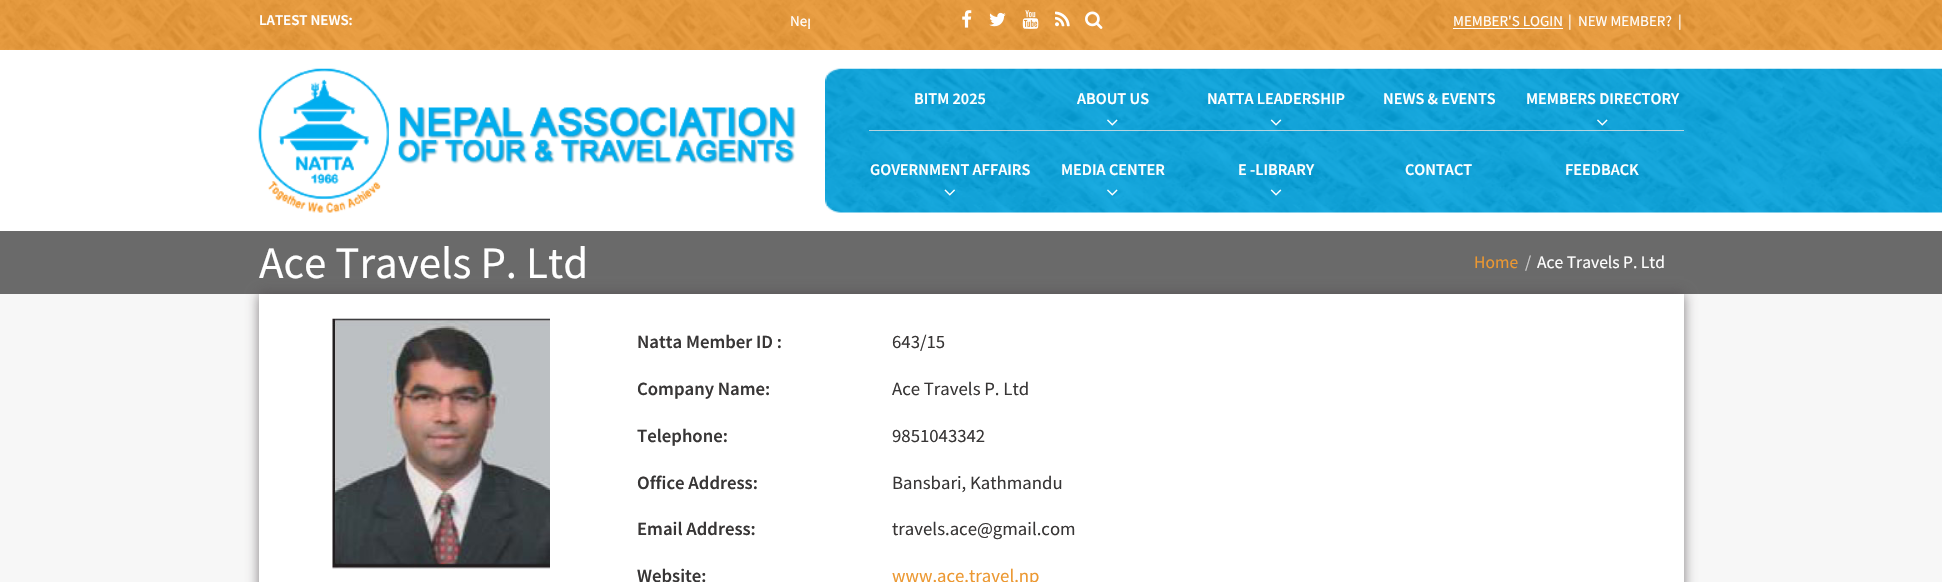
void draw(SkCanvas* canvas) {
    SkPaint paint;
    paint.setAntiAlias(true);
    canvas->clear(0xFFF7F7F7);
    paint.setColor(0xFFEC9831);
    canvas->drawRect(SkRect::MakeXYWH(0, 0, 1942, 50), paint);
    canvas->drawImageRect(SkImages::DeferredFromEncodedData(SkData::MakeFromFileName("img1.png")), SkRect::MakeXYWH(0, 0, 1942, 50), SkSamplingOptions());
    SkFont font1(fontMgr->matchFamilyStyle("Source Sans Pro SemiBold", SkFontStyle(600, SkFontStyle::kNormal_Width, SkFontStyle::kUpright_Slant)), 15);
    font1.setSubpixel(true);
    paint.setColor(0xFFFFFFFF);
    canvas->drawString("LATEST NEWS:", 259, 25, font1, paint);
    canvas->save();
    canvas->clipRect(SkRect::MakeXYWH(353, 6, 457, 30));
    SkFont font2(fontMgr->matchFamilyStyle("Source Sans Pro", SkFontStyle::Normal()), 15);
    font2.setSubpixel(true);
    canvas->drawString("Nep", 790, 26, font2, paint);
    canvas->restore();
    canvas->drawImageRect(SkImages::DeferredFromEncodedData(SkData::MakeFromFileName("img2.png")), SkRect::MakeXYWH(962, 10, 10, 18), SkSamplingOptions());
    canvas->drawImageRect(SkImages::DeferredFromEncodedData(SkData::MakeFromFileName("img3.png")), SkRect::MakeXYWH(989, 12, 17, 15), SkSamplingOptions());
    canvas->drawImageRect(SkImages::DeferredFromEncodedData(SkData::MakeFromFileName("img4.png")), SkRect::MakeXYWH(1022, 10, 17, 19), SkSamplingOptions());
    canvas->drawImageRect(SkImages::DeferredFromEncodedData(SkData::MakeFromFileName("img5.png")), SkRect::MakeXYWH(1055, 11, 15, 16), SkSamplingOptions());
    canvas->drawImageRect(SkImages::DeferredFromEncodedData(SkData::MakeFromFileName("img6.png")), SkRect::MakeXYWH(1085, 11, 18, 18), SkSamplingOptions());
    canvas->drawString("MEMBER'S LOGIN", 1453, 26, font2, paint);
    canvas->drawRect(SkRect::MakeXYWH(1453, 28, 110, 1), paint);
    canvas->drawString("|", 1568, 26, font2, paint);
    canvas->drawString("NEW MEMBER?", 1578, 26, font2, paint);
    canvas->drawString("|", 1678, 26, font2, paint);
    canvas->drawRect(SkRect::MakeXYWH(0, 50, 1942, 181), paint);
    canvas->drawImageRect(SkImages::DeferredFromEncodedData(SkData::MakeFromFileName("img7.png")), SkRect::MakeXYWH(825, 68, 1117, 145), SkSamplingOptions());
    canvas->drawImageRect(SkImages::DeferredFromEncodedData(SkData::MakeFromFileName("img8.png")), SkRect::MakeXYWH(258, 68, 538, 145), SkSamplingOptions());
    paint.setColor(0xCCE1E1E1);
    canvas->drawRect(SkRect::MakeXYWH(869, 130, 162, 1), paint);
    SkFont font3(fontMgr->matchFamilyStyle("Source Sans Pro SemiBold", SkFontStyle(600, SkFontStyle::kNormal_Width, SkFontStyle::kUpright_Slant)), 16.25f);
    font3.setSubpixel(true);
    paint.setColor(0xFFFFFFFF);
    canvas->drawString("BITM 2025", 914, 104, font3, paint);
    paint.setColor(0xCCE1E1E1);
    canvas->drawRect(SkRect::MakeXYWH(1031, 130, 163, 1), paint);
    paint.setColor(0xFFFFFFFF);
    canvas->drawString("ABOUT US", 1077, 104, font3, paint);
    canvas->drawImageRect(SkImages::DeferredFromEncodedData(SkData::MakeFromFileName("img9.png")), SkRect::MakeXYWH(1107, 119, 11, 7), SkSamplingOptions());
    paint.setColor(0xCCE1E1E1);
    canvas->drawRect(SkRect::MakeXYWH(1194, 130, 164, 1), paint);
    paint.setColor(0xFFFFFFFF);
    canvas->drawString("NATTA LEADERSHIP", 1207, 104, font3, paint);
    canvas->drawImageRect(SkImages::DeferredFromEncodedData(SkData::MakeFromFileName("img10.png")), SkRect::MakeXYWH(1270, 119, 12, 7), SkSamplingOptions());
    paint.setColor(0xCCE1E1E1);
    canvas->drawRect(SkRect::MakeXYWH(1358, 130, 162, 1), paint);
    paint.setColor(0xFFFFFFFF);
    canvas->drawString("NEWS & EVENTS", 1383, 104, font3, paint);
    paint.setColor(0xCCE1E1E1);
    canvas->drawRect(SkRect::MakeXYWH(1520, 130, 164, 1), paint);
    paint.setColor(0xFFFFFFFF);
    canvas->drawString("MEMBERS DIRECTORY", 1526, 104, font3, paint);
    canvas->drawImageRect(SkImages::DeferredFromEncodedData(SkData::MakeFromFileName("img11.png")), SkRect::MakeXYWH(1597, 119, 11, 7), SkSamplingOptions());
    canvas->drawString("GOVERNMENT AFFAIRS", 870, 175, font3, paint);
    canvas->drawImageRect(SkImages::DeferredFromEncodedData(SkData::MakeFromFileName("img12.png")), SkRect::MakeXYWH(944, 189, 11, 7), SkSamplingOptions());
    canvas->drawString("MEDIA CENTER", 1061, 175, font3, paint);
    canvas->drawImageRect(SkImages::DeferredFromEncodedData(SkData::MakeFromFileName("img13.png")), SkRect::MakeXYWH(1107, 189, 11, 7), SkSamplingOptions());
    canvas->drawString("E -LIBRARY", 1238, 175, font3, paint);
    canvas->drawImageRect(SkImages::DeferredFromEncodedData(SkData::MakeFromFileName("img14.png")), SkRect::MakeXYWH(1270, 189, 12, 7), SkSamplingOptions());
    canvas->drawString("CONTACT", 1405, 175, font3, paint);
    canvas->drawString("FEEDBACK", 1565, 175, font3, paint);
    paint.setColor(0xFF6A6A6A);
    canvas->drawRect(SkRect::MakeXYWH(0, 231, 1942, 63), paint);
    paint.setColor(0xB04D464A);
    paint.setMaskFilter(SkMaskFilter::MakeBlur(kNormal_SkBlurStyle, 6));
    canvas->drawRect(SkRect::MakeXYWH(259, 294, 1425, 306), paint);
    paint.setMaskFilter(nullptr);
    SkFont font4(fontMgr->matchFamilyStyle("Source Sans Pro", SkFontStyle::Normal()), 45);
    font4.setSubpixel(true);
    paint.setColor(0xFFFFFFFF);
    canvas->drawString("Ace Travels P. Ltd", 259, 278, font4, paint);
    SkFont font5(fontMgr->matchFamilyStyle("Source Sans Pro", SkFontStyle::Normal()), 17.5f);
    font5.setSubpixel(true);
    paint.setColor(0xFFEC9831);
    canvas->drawString("Home", 1474, 268, font5, paint);
    paint.setColor(0xFFCCCCCC);
    canvas->drawString("/", 1525, 268, font5, paint);
    paint.setColor(0xFFFFFFFF);
    canvas->drawString("Ace Travels P. Ltd", 1537, 268, font5, paint);
    canvas->drawRect(SkRect::MakeXYWH(259, 294, 1425, 288), paint);
    canvas->drawImageRect(SkImages::DeferredFromEncodedData(SkData::MakeFromFileName("img15.png")), SkRect::MakeXYWH(332, 318, 218, 251), SkSamplingOptions());
    SkFont font6(fontMgr->matchFamilyStyle("Source Sans Pro SemiBold", SkFontStyle(600, SkFontStyle::kNormal_Width, SkFontStyle::kUpright_Slant)), 18.75f);
    font6.setSubpixel(true);
    paint.setColor(0xFF383636);
    canvas->drawString("Natta Member ID :", 637, 348, font6, paint);
    SkFont font7(fontMgr->matchFamilyStyle("Source Sans Pro", SkFontStyle::Normal()), 18.75f);
    font7.setSubpixel(true);
    canvas->drawString("643/15", 892, 348, font7, paint);
    canvas->drawString("Company Name:", 637, 395, font6, paint);
    canvas->drawString("Ace Travels P. Ltd", 892, 395, font7, paint);
    canvas->drawString("Telephone:", 637, 442, font6, paint);
    canvas->drawString("9851043342", 892, 442, font7, paint);
    canvas->drawString("Office Address:", 637, 489, font6, paint);
    canvas->drawString("Bansbari, Kathmandu", 892, 489, font7, paint);
    canvas->drawString("Email Address:", 637, 535, font6, paint);
    canvas->drawString("travels.ace@gmail.com", 892, 535, font7, paint);
    canvas->drawString("Website:", 637, 582, font6, paint);
    paint.setColor(0xFFEC9831);
    canvas->drawString("www.ace.travel.np", 892, 582, font7, paint);
}
